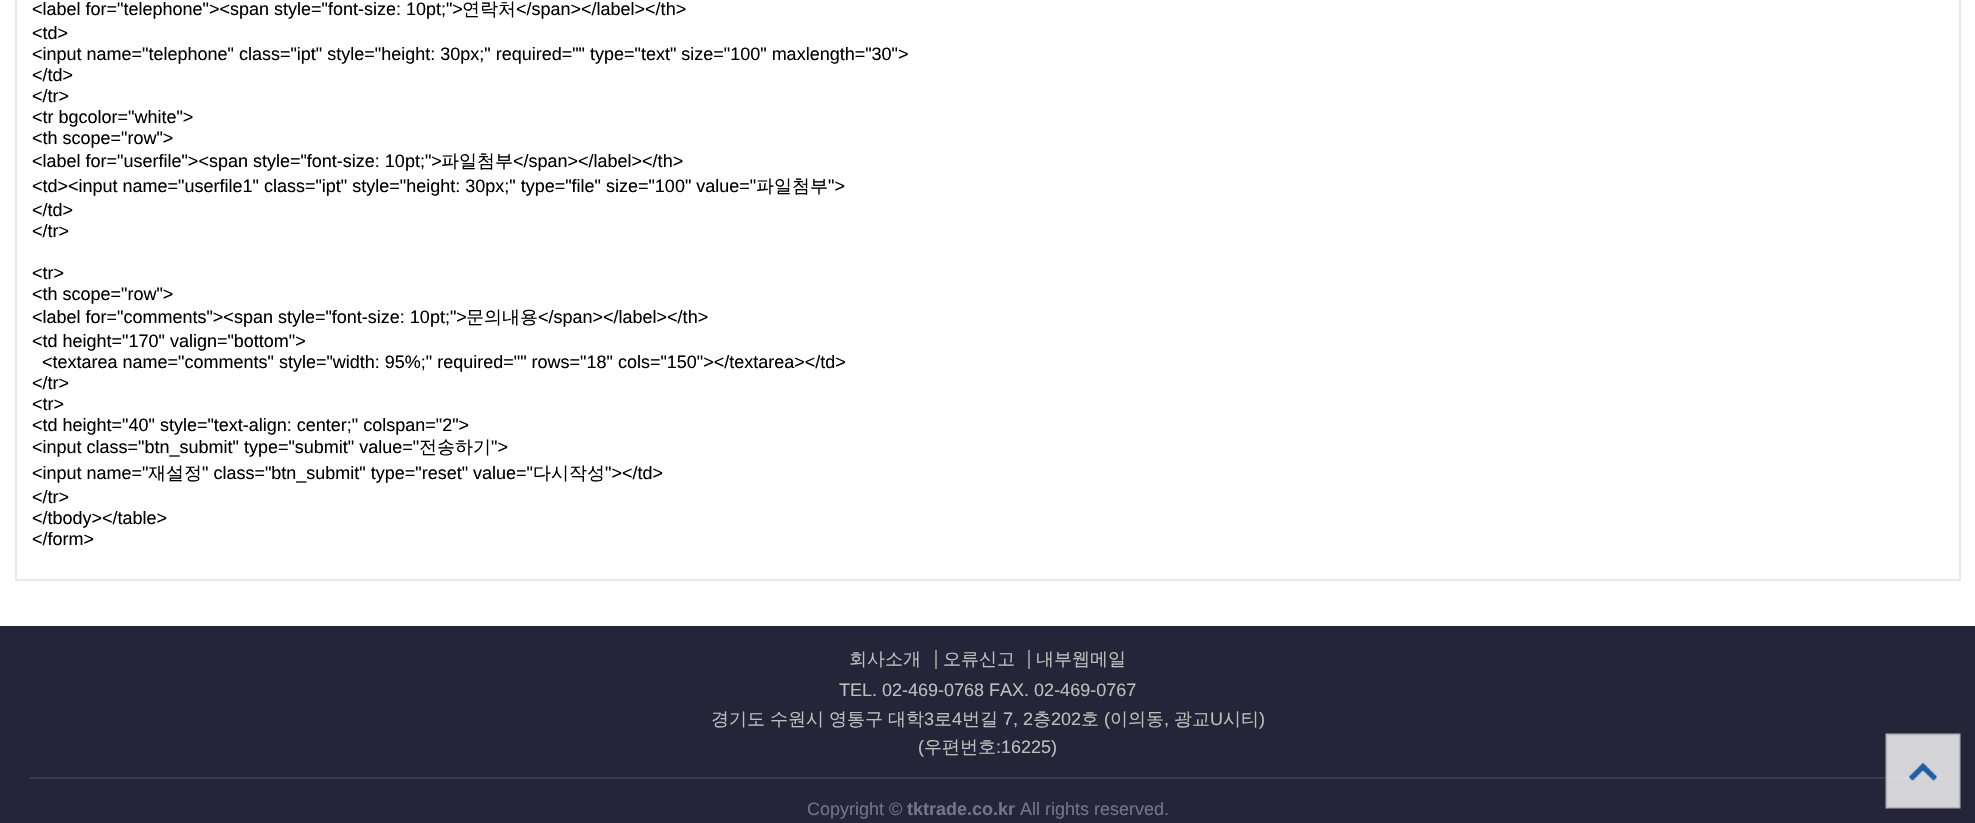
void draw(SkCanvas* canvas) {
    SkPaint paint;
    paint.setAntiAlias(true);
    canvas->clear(0xFFFFFFFF);
    paint.setStyle(SkPaint::kStroke_Style);
    paint.setStrokeWidth(2);
    paint.setColor(0xFFE9E9E9);
    canvas->drawRect(SkRect::MakeXYWH(16, -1, 1944, 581), paint);
    SkFont font1(fontMgr->matchFamilyStyle("Liberation Sans", SkFontStyle::Normal()), 18);
    font1.setSubpixel(true);
    paint.setStyle(SkPaint::kFill_Style);
    paint.setColor(0xFF000000);
    canvas->drawString("<label for=\"telephone\"><span style=\"font-size: 10pt;\">", 32, 15, font1, paint);
    SkFont font2(fontMgr->matchFamilyStyle("WenQuanYi Zen Hei", SkFontStyle(500, SkFontStyle::kNormal_Width, SkFontStyle::kUpright_Slant)), 18);
    font2.setSubpixel(true);
    canvas->drawString("연락처", 462, 15, font2, paint);
    canvas->drawString("</span></label></th>", 516, 15, font1, paint);
    canvas->drawString("<td>", 32, 39, font1, paint);
    canvas->drawString("<input name=\"telephone\" class=\"ipt\" style=\"height: 30px;\" required=\"\" type=\"text\" size=\"100\" maxlength=\"30\">", 32, 60, font1, paint);
    canvas->drawString("</td>", 32, 81, font1, paint);
    canvas->drawString("</tr>", 32, 102, font1, paint);
    canvas->drawString("<tr bgcolor=\"white\">", 32, 123, font1, paint);
    canvas->drawString("<th scope=\"row\">", 32, 144, font1, paint);
    canvas->drawString("<label for=\"userfile\"><span style=\"font-size: 10pt;\">", 32, 167, font1, paint);
    canvas->drawString("파일첨부", 441, 167, font2, paint);
    canvas->drawString("</span></label></th>", 513, 167, font1, paint);
    canvas->drawString("<td><input name=\"userfile1\" class=\"ipt\" style=\"height: 30px;\" type=\"file\" size=\"100\" value=\"", 32, 192, font1, paint);
    canvas->drawString("파일첨부", 756, 192, font2, paint);
    canvas->drawString("\">", 828, 192, font1, paint);
    canvas->drawString("</td>", 32, 216, font1, paint);
    canvas->drawString("</tr>", 32, 237, font1, paint);
    canvas->drawString("<tr>", 32, 279, font1, paint);
    canvas->drawString("<th scope=\"row\">", 32, 300, font1, paint);
    canvas->drawString("<label for=\"comments\"><span style=\"font-size: 10pt;\">", 32, 323, font1, paint);
    canvas->drawString("문의내용", 466, 323, font2, paint);
    canvas->drawString("</span></label></th>", 538, 323, font1, paint);
    canvas->drawString("<td height=\"170\" valign=\"bottom\">", 32, 347, font1, paint);
    canvas->drawString("<textarea name=\"comments\" style=\"width: 95%;\" required=\"\" rows=\"18\" cols=\"150\"></textarea></td>", 42, 368, font1, paint);
    canvas->drawString("</tr>", 32, 389, font1, paint);
    canvas->drawString("<tr>", 32, 410, font1, paint);
    canvas->drawString("<td height=\"40\" style=\"text-align: center;\" colspan=\"2\">", 32, 431, font1, paint);
    canvas->drawString("<input class=\"btn_submit\" type=\"submit\" value=\"", 32, 453, font1, paint);
    canvas->drawString("전송하기", 419, 453, font2, paint);
    canvas->drawString("\">", 491, 453, font1, paint);
    canvas->drawString("<input name=\"", 32, 479, font1, paint);
    canvas->drawString("재설정", 148, 479, font2, paint);
    canvas->drawString("\" class=\"btn_submit\" type=\"reset\" value=\"", 202, 479, font1, paint);
    canvas->drawString("다시작성", 533, 479, font2, paint);
    canvas->drawString("\"></td>", 605, 479, font1, paint);
    canvas->drawString("</tr>", 32, 503, font1, paint);
    canvas->drawString("</tbody></table>", 32, 524, font1, paint);
    canvas->drawString("</form>", 32, 545, font1, paint);
    paint.setColor(0xFF262439);
    canvas->drawRect(SkRect::MakeXYWH(0, 626, 1975, 197), paint);
    paint.setColor(0xFFBEBEBE);
    canvas->drawString("회사소개", 849, 665, font2, paint);
    paint.setColor(0xFF888888);
    canvas->drawRect(SkRect::MakeXYWH(935, 650, 2, 19), paint);
    paint.setColor(0xFFBEBEBE);
    canvas->drawString("오류신고", 943, 665, font2, paint);
    paint.setColor(0xFF888888);
    canvas->drawRect(SkRect::MakeXYWH(1028, 650, 2, 19), paint);
    paint.setColor(0xFFBEBEBE);
    canvas->drawString("내부웹메일", 1036, 665, font2, paint);
    canvas->drawString("TEL. 02-469-0768 FAX. 02-469-0767", 839, 696, font1, paint);
    canvas->drawString("경기도", 711, 725, font2, paint);
    canvas->drawString("수원시", 770, 725, font2, paint);
    canvas->drawString("영통구", 829, 725, font2, paint);
    canvas->drawString("대학", 888, 725, font2, paint);
    canvas->drawString("3", 924, 725, font1, paint);
    canvas->drawString("로", 934, 725, font2, paint);
    canvas->drawString("4", 952, 725, font1, paint);
    canvas->drawString("번길", 962, 725, font2, paint);
    canvas->drawString("7, 2", 1003, 725, font1, paint);
    canvas->drawString("층", 1033, 725, font2, paint);
    canvas->drawString("202", 1051, 725, font1, paint);
    canvas->drawString("호", 1081, 725, font2, paint);
    canvas->drawString("(", 1104, 725, font1, paint);
    canvas->drawString("이의동", 1110, 725, font2, paint);
    canvas->drawString(",", 1164, 725, font1, paint);
    canvas->drawString("광교", 1174, 725, font2, paint);
    canvas->drawString("U", 1210, 725, font1, paint);
    canvas->drawString("시티", 1223, 725, font2, paint);
    canvas->drawString(")", 1259, 725, font1, paint);
    canvas->drawString("(", 918, 753, font1, paint);
    canvas->drawString("우편번호", 924, 753, font2, paint);
    canvas->drawString(":16225)", 996, 753, font1, paint);
    paint.setColor(0xFF3C3A4D);
    canvas->drawRect(SkRect::MakeXYWH(30, 777, 1916, 2), paint);
    paint.setColor(0xFF75738C);
    canvas->drawString("Copyright ©", 807, 815, font1, paint);
    SkFont font3(fontMgr->matchFamilyStyle("Liberation Sans", SkFontStyle::Bold()), 18);
    font3.setSubpixel(true);
    canvas->drawString("tktrade.co.kr", 907, 815, font3, paint);
    canvas->drawString("All rights reserved.", 1020, 815, font1, paint);
    canvas->drawImageRect(SkImages::DeferredFromEncodedData(SkData::MakeFromFileName("img1.png")), SkRect::MakeXYWH(1885, 733, 76, 76), SkSamplingOptions());
}
